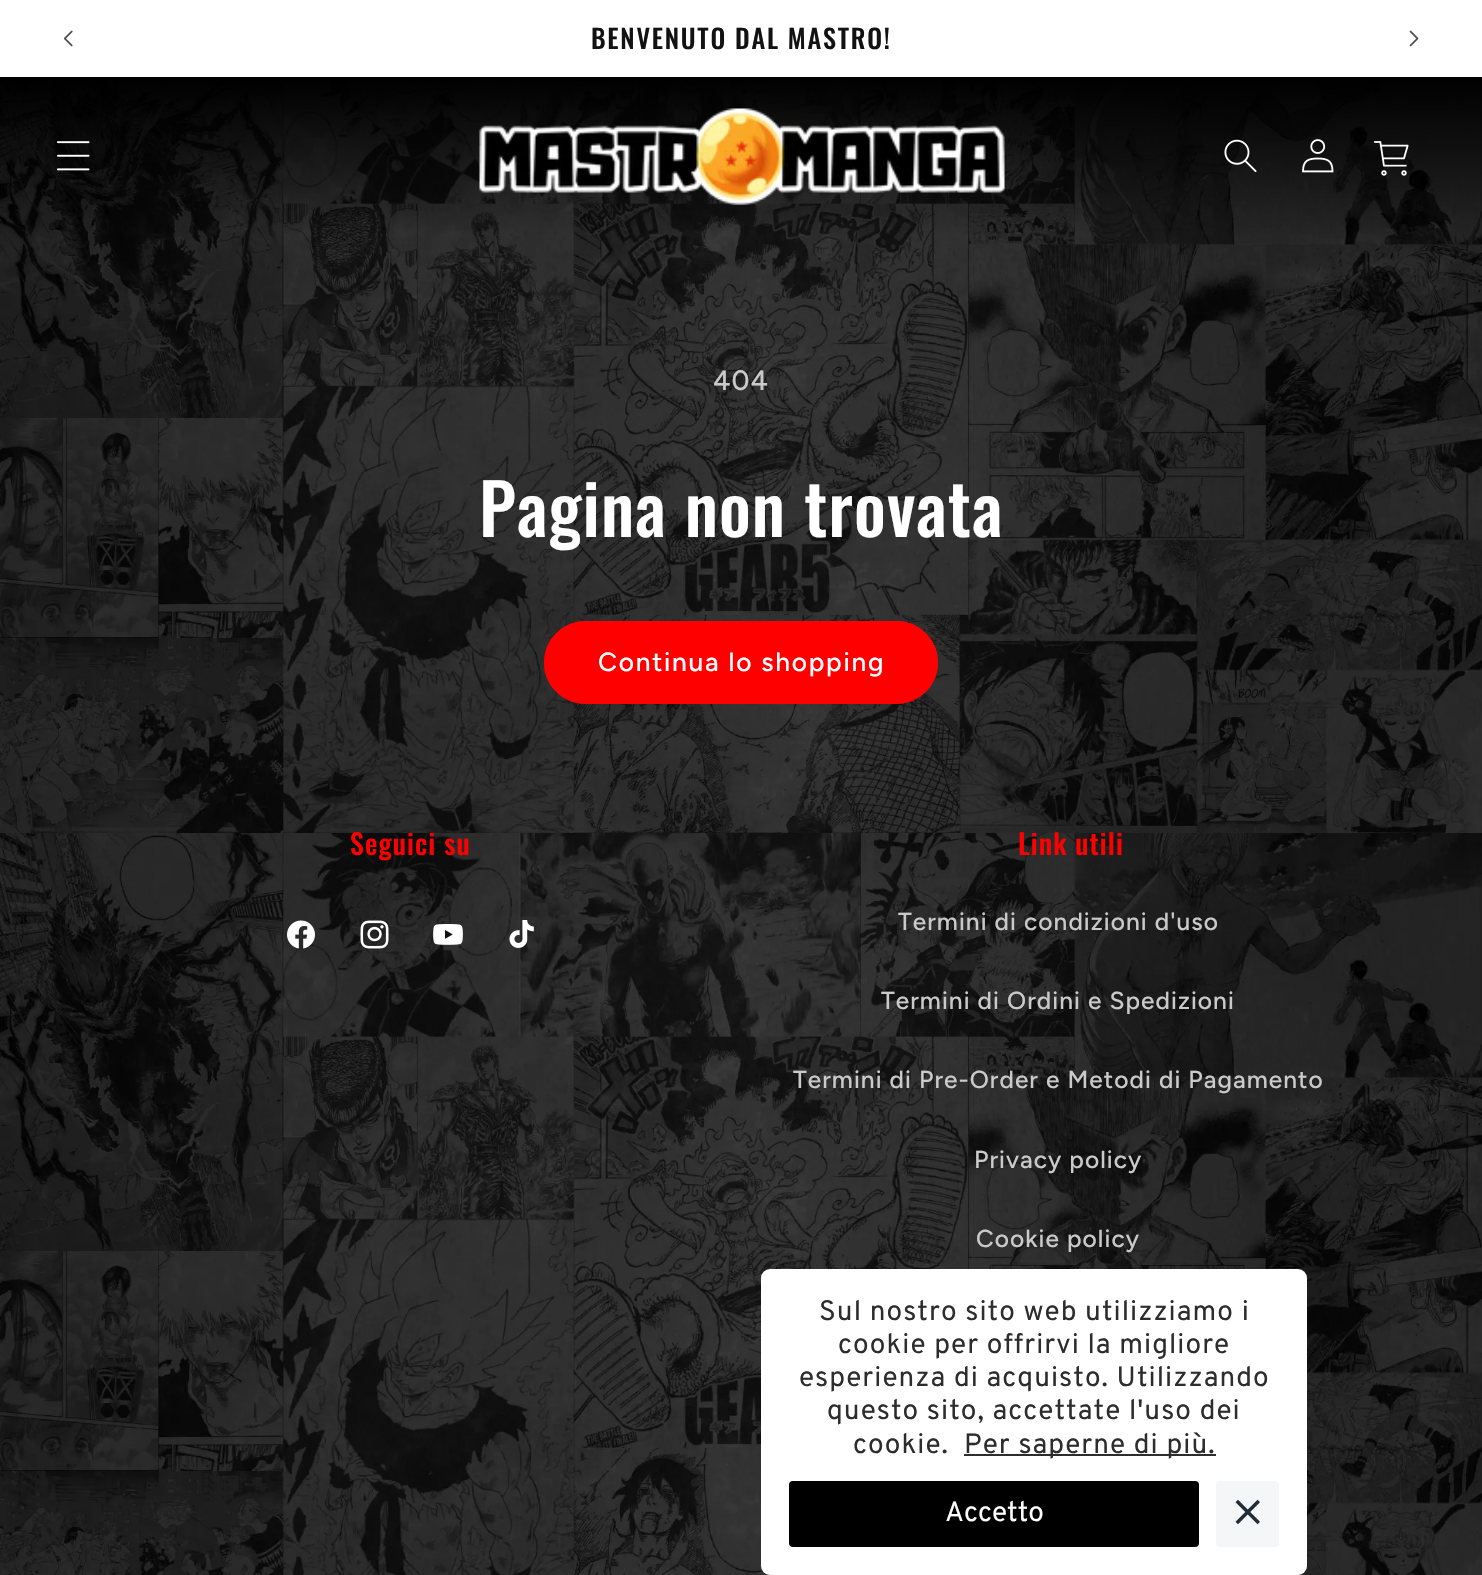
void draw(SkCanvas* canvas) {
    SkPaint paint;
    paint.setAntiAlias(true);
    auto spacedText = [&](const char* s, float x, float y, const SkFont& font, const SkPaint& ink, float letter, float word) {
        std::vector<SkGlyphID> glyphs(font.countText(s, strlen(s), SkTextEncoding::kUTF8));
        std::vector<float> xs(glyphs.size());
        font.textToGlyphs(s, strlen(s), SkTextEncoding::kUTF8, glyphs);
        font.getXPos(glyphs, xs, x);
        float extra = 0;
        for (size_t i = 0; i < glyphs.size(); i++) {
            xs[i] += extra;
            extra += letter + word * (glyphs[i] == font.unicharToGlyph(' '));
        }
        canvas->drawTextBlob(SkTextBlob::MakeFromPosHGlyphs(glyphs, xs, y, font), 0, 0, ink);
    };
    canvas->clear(0xFFFFFFFF);
    canvas->drawImageRect(SkImages::DeferredFromEncodedData(SkData::MakeFromFileName("img1.png")), SkRect::MakeXYWH(0, 77, 1482, 1498), SkSamplingOptions());
    canvas->drawImageRect(SkImages::DeferredFromEncodedData(SkData::MakeFromFileName("img2.png")), SkRect::MakeXYWH(63, 30, 10, 17), SkSamplingOptions());
    SkFont font1(fontMgr->matchFamilyStyle("Oswald", SkFontStyle(500, SkFontStyle::kNormal_Width, SkFontStyle::kUpright_Slant)), 26.25f);
    font1.setSubpixel(true);
    paint.setColor(0xFF121212);
    spacedText("BENVENUTO DAL MASTRO!", 591, 49, font1, paint, 1.75f, 0);
    canvas->drawImageRect(SkImages::DeferredFromEncodedData(SkData::MakeFromFileName("img3.png")), SkRect::MakeXYWH(1409, 30, 10, 17), SkSamplingOptions());
    canvas->drawImageRect(SkImages::DeferredFromEncodedData(SkData::MakeFromFileName("img4.png")), SkRect::MakeXYWH(57, 141, 33, 30), SkSamplingOptions());
    canvas->drawImageRect(SkImages::DeferredFromEncodedData(SkData::MakeFromFileName("img5.png")), SkRect::MakeXYWH(479, 108, 526, 97), SkSamplingOptions());
    canvas->drawImageRect(SkImages::DeferredFromEncodedData(SkData::MakeFromFileName("img6.png")), SkRect::MakeXYWH(1224, 139, 33, 34), SkSamplingOptions());
    canvas->drawImageRect(SkImages::DeferredFromEncodedData(SkData::MakeFromFileName("img7.png")), SkRect::MakeXYWH(1302, 139, 32, 34), SkSamplingOptions());
    canvas->drawImageRect(SkImages::DeferredFromEncodedData(SkData::MakeFromFileName("img8.png")), SkRect::MakeXYWH(1374, 141, 35, 35), SkSamplingOptions());
    SkFont font2(fontMgr->matchFamilyStyle("Figtree", SkFontStyle(500, SkFontStyle::kNormal_Width, SkFontStyle::kUpright_Slant)), 28);
    font2.setSubpixel(true);
    paint.setColor(0xFFCACACA);
    spacedText("404", 713, 390, font2, paint, 1.05f, 0);
    SkFont font3(fontMgr->matchFamilyStyle("Oswald", SkFontStyle(500, SkFontStyle::kNormal_Width, SkFontStyle::kUpright_Slant)), 70);
    font3.setSubpixel(true);
    paint.setColor(0xFFFFFFFF);
    spacedText("Pagina non trovata", 479, 537, font3, paint, 1.05f, 0);
    paint.setColor(0xFFFF0000);
    canvas->drawRoundRect(SkRect::MakeXYWH(544, 621, 394, 83), 41.5f, 41.5f, paint);
    paint.setStyle(SkPaint::kStroke_Style);
    paint.setStrokeWidth(2);
    canvas->drawRoundRect(SkRect::MakeXYWH(545, 622, 392, 81), 40.5f, 40.5f, paint);
    SkFont font4(fontMgr->matchFamilyStyle("Figtree", SkFontStyle(500, SkFontStyle::kNormal_Width, SkFontStyle::kUpright_Slant)), 26.25f);
    font4.setSubpixel(true);
    paint.setStyle(SkPaint::kFill_Style);
    paint.setColor(0xFFFFFFFF);
    spacedText("Continua lo shopping", 598, 671, font4, paint, 1.75f, 0);
    SkFont font5(fontMgr->matchFamilyStyle("Oswald", SkFontStyle(500, SkFontStyle::kNormal_Width, SkFontStyle::kUpright_Slant)), 28);
    font5.setSubpixel(true);
    paint.setColor(0xFFFF0000);
    spacedText("Seguici su", 350, 855, font5, paint, 1.05f, 0);
    canvas->drawImageRect(SkImages::DeferredFromEncodedData(SkData::MakeFromFileName("img9.png")), SkRect::MakeXYWH(287, 920, 28, 29), SkSamplingOptions());
    canvas->drawImageRect(SkImages::DeferredFromEncodedData(SkData::MakeFromFileName("img10.png")), SkRect::MakeXYWH(360, 920, 29, 29), SkSamplingOptions());
    canvas->drawImageRect(SkImages::DeferredFromEncodedData(SkData::MakeFromFileName("img11.png")), SkRect::MakeXYWH(433, 924, 30, 21), SkSamplingOptions());
    canvas->drawImageRect(SkImages::DeferredFromEncodedData(SkData::MakeFromFileName("img12.png")), SkRect::MakeXYWH(509, 920, 25, 28), SkSamplingOptions());
    spacedText("Link utili", 1018, 855, font5, paint, 1.05f, 0);
    SkFont font6(fontMgr->matchFamilyStyle("Figtree", SkFontStyle(500, SkFontStyle::kNormal_Width, SkFontStyle::kUpright_Slant)), 24.5f);
    font6.setSubpixel(true);
    paint.setColor(0xFFCACACA);
    spacedText("Termini di condizioni d'uso", 898, 930, font6, paint, 1.05f, 0);
    spacedText("Termini di Ordini e Spedizioni", 881, 1009, font6, paint, 1.05f, 0);
    spacedText("Termini di Pre-Order e Metodi di Pagamento", 793, 1088, font6, paint, 1.05f, 0);
    spacedText("Privacy policy", 974, 1168, font6, paint, 1.05f, 0);
    spacedText("Cookie policy", 976, 1247, font6, paint, 1.05f, 0);
    paint.setColor(0xFFFFFFFF);
    canvas->drawRoundRect(SkRect::MakeXYWH(761, 1269, 546, 306), 9, 9, paint);
    SkFont font7(fontMgr->matchFamilyStyle("Overpass", SkFontStyle::Normal()), 28);
    font7.setSubpixel(true);
    paint.setColor(0xFF2D2D2D);
    spacedText("Sul nostro sito web utilizziamo i", 819, 1320, font7, paint, 1.05f, 0);
    spacedText("cookie per offrirvi la migliore", 838, 1353, font7, paint, 1.05f, 0);
    spacedText("esperienza di acquisto. Utilizzando", 799, 1386, font7, paint, 1.05f, 0);
    spacedText("questo sito, accettate l'uso dei", 827, 1419, font7, paint, 1.05f, 0);
    spacedText("cookie.", 853, 1453, font7, paint, 1.05f, 0);
    canvas->drawRect(SkRect::MakeXYWH(964, 1454, 252, 2), paint);
    spacedText("Per saperne di più.", 964, 1453, font7, paint, 1.05f, 0);
    paint.setColor(0xFF000000);
    canvas->drawRoundRect(SkRect::MakeXYWH(789, 1481, 410, 66), 4, 4, paint);
    paint.setColor(0xFFFFFFFF);
    canvas->drawString("Accetto", 945, 1521, font7, paint);
    paint.setColor(0xFFF4F6F8);
    canvas->drawRoundRect(SkRect::MakeXYWH(1216, 1481, 63, 66), 4, 4, paint);
    canvas->drawImageRect(SkImages::DeferredFromEncodedData(SkData::MakeFromFileName("img13.png")), SkRect::MakeXYWH(1235, 1499, 25, 26), SkSamplingOptions());
}
